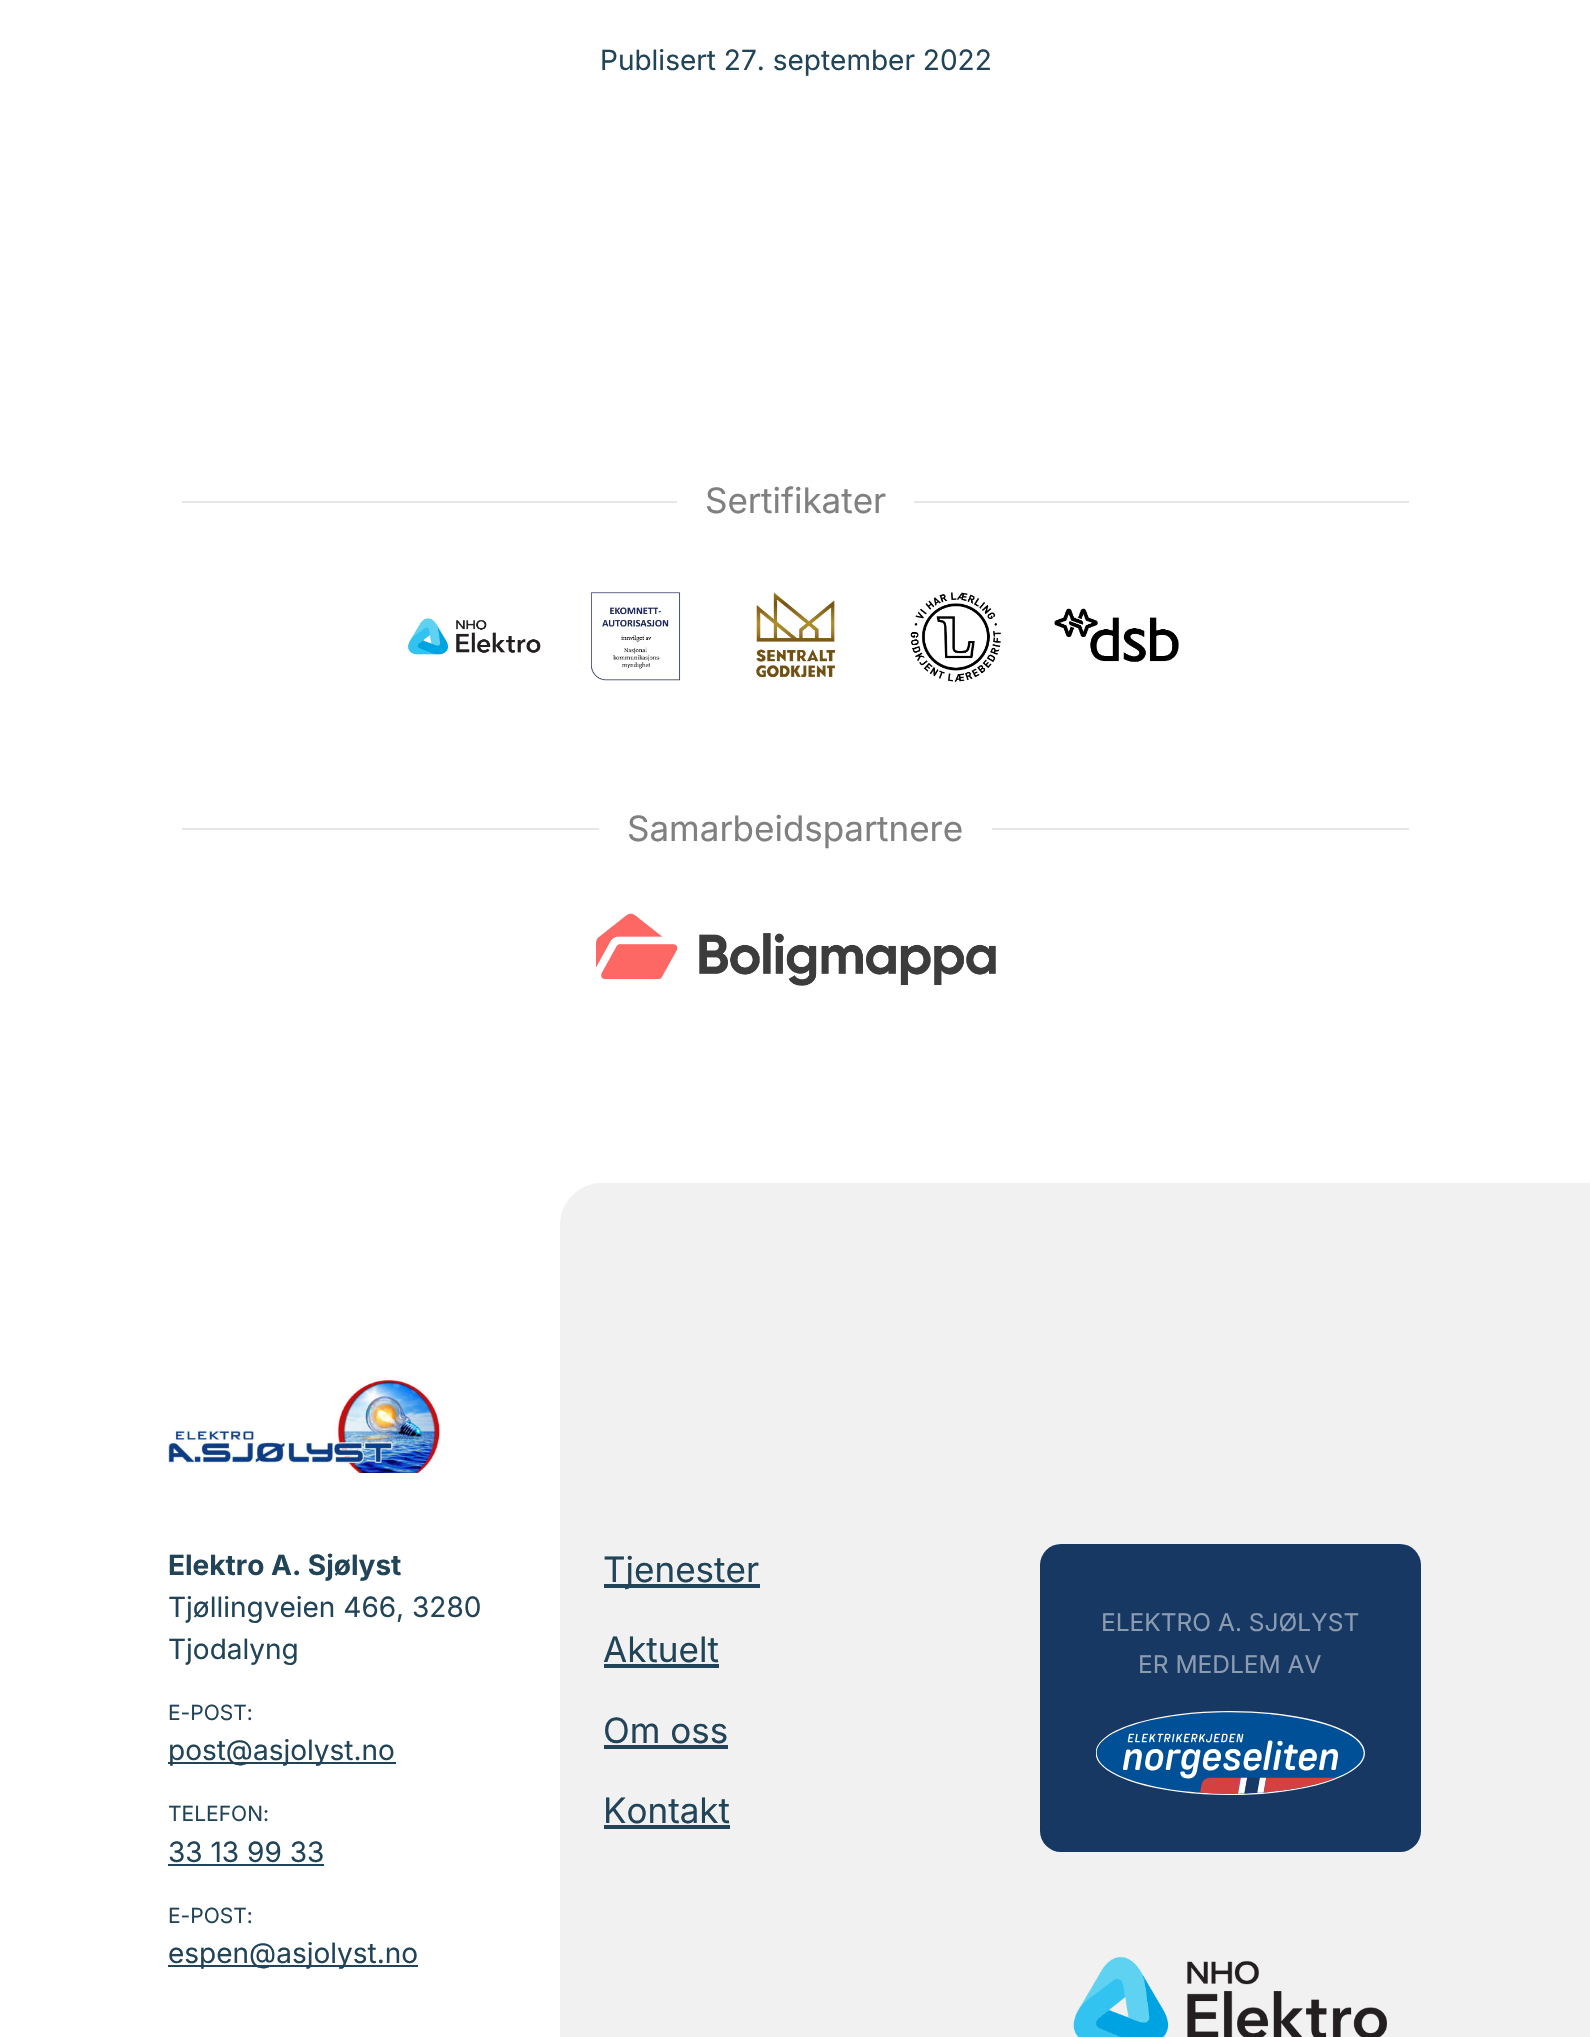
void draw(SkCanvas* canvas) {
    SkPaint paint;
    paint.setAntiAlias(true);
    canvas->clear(0xFFFFFFFF);
    SkFont font1(fontMgr->matchFamilyStyle("Inter", SkFontStyle::Normal()), 28);
    font1.setSubpixel(true);
    paint.setColor(0xFF224459);
    canvas->drawString("Publisert 27. september 2022", 600, 70, font1, paint);
    paint.setColor(0xFFE6E6E6);
    canvas->drawRect(SkRect::MakeXYWH(182, 501, 1227, 2), paint);
    paint.setColor(0xFFFFFFFF);
    canvas->drawRect(SkRect::MakeXYWH(677, 501, 237, 2), paint);
    SkFont font2(fontMgr->matchFamilyStyle("Inter", SkFontStyle::Normal()), 35);
    font2.setSubpixel(true);
    paint.setColor(0xFF808080);
    canvas->drawString("Sertifikater", 705, 513, font2, paint);
    canvas->drawImageRect(SkImages::DeferredFromEncodedData(SkData::MakeFromFileName("img1.png")), SkRect::MakeXYWH(407, 618, 134, 37), SkSamplingOptions());
    canvas->drawImageRect(SkImages::DeferredFromEncodedData(SkData::MakeFromFileName("img2.png")), SkRect::MakeXYWH(591, 592, 90, 89), SkSamplingOptions());
    canvas->drawImageRect(SkImages::DeferredFromEncodedData(SkData::MakeFromFileName("img3.png")), SkRect::MakeXYWH(756, 592, 79, 86), SkSamplingOptions());
    canvas->drawImageRect(SkImages::DeferredFromEncodedData(SkData::MakeFromFileName("img4.png")), SkRect::MakeXYWH(910, 592, 91, 90), SkSamplingOptions());
    canvas->drawImageRect(SkImages::DeferredFromEncodedData(SkData::MakeFromFileName("img5.png")), SkRect::MakeXYWH(1054, 608, 125, 54), SkSamplingOptions());
    paint.setColor(0xFFE6E6E6);
    canvas->drawRect(SkRect::MakeXYWH(182, 828, 1227, 2), paint);
    paint.setColor(0xFFFFFFFF);
    canvas->drawRect(SkRect::MakeXYWH(599, 828, 393, 2), paint);
    paint.setColor(0xFF808080);
    canvas->drawString("Samarbeidspartnere", 627, 841, font2, paint);
    canvas->drawImageRect(SkImages::DeferredFromEncodedData(SkData::MakeFromFileName("img6.png")), SkRect::MakeXYWH(596, 913, 400, 73), SkSamplingOptions());
    canvas->drawImageRect(SkImages::DeferredFromEncodedData(SkData::MakeFromFileName("img7.png")), SkRect::MakeXYWH(168, 1378, 273, 95), SkSamplingOptions());
    paint.setColor(0xFFF1F1F1);
    canvas->drawPath(SkPathBuilder().moveTo(602, 1183).lineTo(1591, 1183).lineTo(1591, 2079).lineTo(560, 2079).lineTo(560, 1225).cubicTo(560, 1202, 579, 1183, 602, 1183).close().detach(), paint);
    SkFont font3(fontMgr->matchFamilyStyle("Inter", SkFontStyle::Bold()), 28);
    font3.setSubpixel(true);
    paint.setColor(0xFF224459);
    canvas->drawString("Elektro A. Sjølyst", 168, 1575, font3, paint);
    canvas->drawString("Tjøllingveien 466, 3280", 168, 1617, font1, paint);
    canvas->drawString("Tjodalyng", 168, 1659, font1, paint);
    SkFont font4(fontMgr->matchFamilyStyle("Inter", SkFontStyle::Normal()), 21);
    font4.setSubpixel(true);
    canvas->drawString("E-POST:", 168, 1720, font4, paint);
    canvas->drawRect(SkRect::MakeXYWH(168, 1762, 228, 2), paint);
    canvas->drawString("post@asjolyst.no", 168, 1760, font1, paint);
    canvas->drawString("TELEFON:", 168, 1821, font4, paint);
    canvas->drawString("33 13 99 33", 168, 1862, font1, paint);
    canvas->drawRect(SkRect::MakeXYWH(168, 1864, 156, 2), paint);
    canvas->drawString("E-POST:", 168, 1923, font4, paint);
    canvas->drawRect(SkRect::MakeXYWH(168, 1965, 250, 2), paint);
    canvas->drawString("espen@asjolyst.no", 168, 1963, font1, paint);
    canvas->drawRect(SkRect::MakeXYWH(604, 1584, 156, 4), paint);
    canvas->drawString("Tjenester", 603, 1582, font2, paint);
    canvas->drawString("Aktuelt", 603, 1662, font2, paint);
    canvas->drawRect(SkRect::MakeXYWH(604, 1664, 115, 4), paint);
    canvas->drawString("Om oss", 603, 1743, font2, paint);
    canvas->drawRect(SkRect::MakeXYWH(604, 1745, 124, 4), paint);
    canvas->drawString("Kontakt", 603, 1823, font2, paint);
    canvas->drawRect(SkRect::MakeXYWH(604, 1825, 126, 4), paint);
    paint.setColor(0xFF173863);
    canvas->drawRoundRect(SkRect::MakeXYWH(1040, 1544, 381, 308), 21, 21, paint);
    SkFont font5(fontMgr->matchFamilyStyle("Inter", SkFontStyle::Normal()), 24.5f);
    font5.setSubpixel(true);
    paint.setColor(0xFF8B9CB1);
    canvas->drawString("ELEKTRO A. SJØLYST", 1101, 1631, font5, paint);
    canvas->drawString("ER MEDLEM AV", 1138, 1673, font5, paint);
    canvas->drawImageRect(SkImages::DeferredFromEncodedData(SkData::MakeFromFileName("img8.png")), SkRect::MakeXYWH(1096, 1711, 269, 84), SkSamplingOptions());
    canvas->drawImageRect(SkImages::DeferredFromEncodedData(SkData::MakeFromFileName("img9.png")), SkRect::MakeXYWH(1073, 1956, 314, 81), SkSamplingOptions());
}
